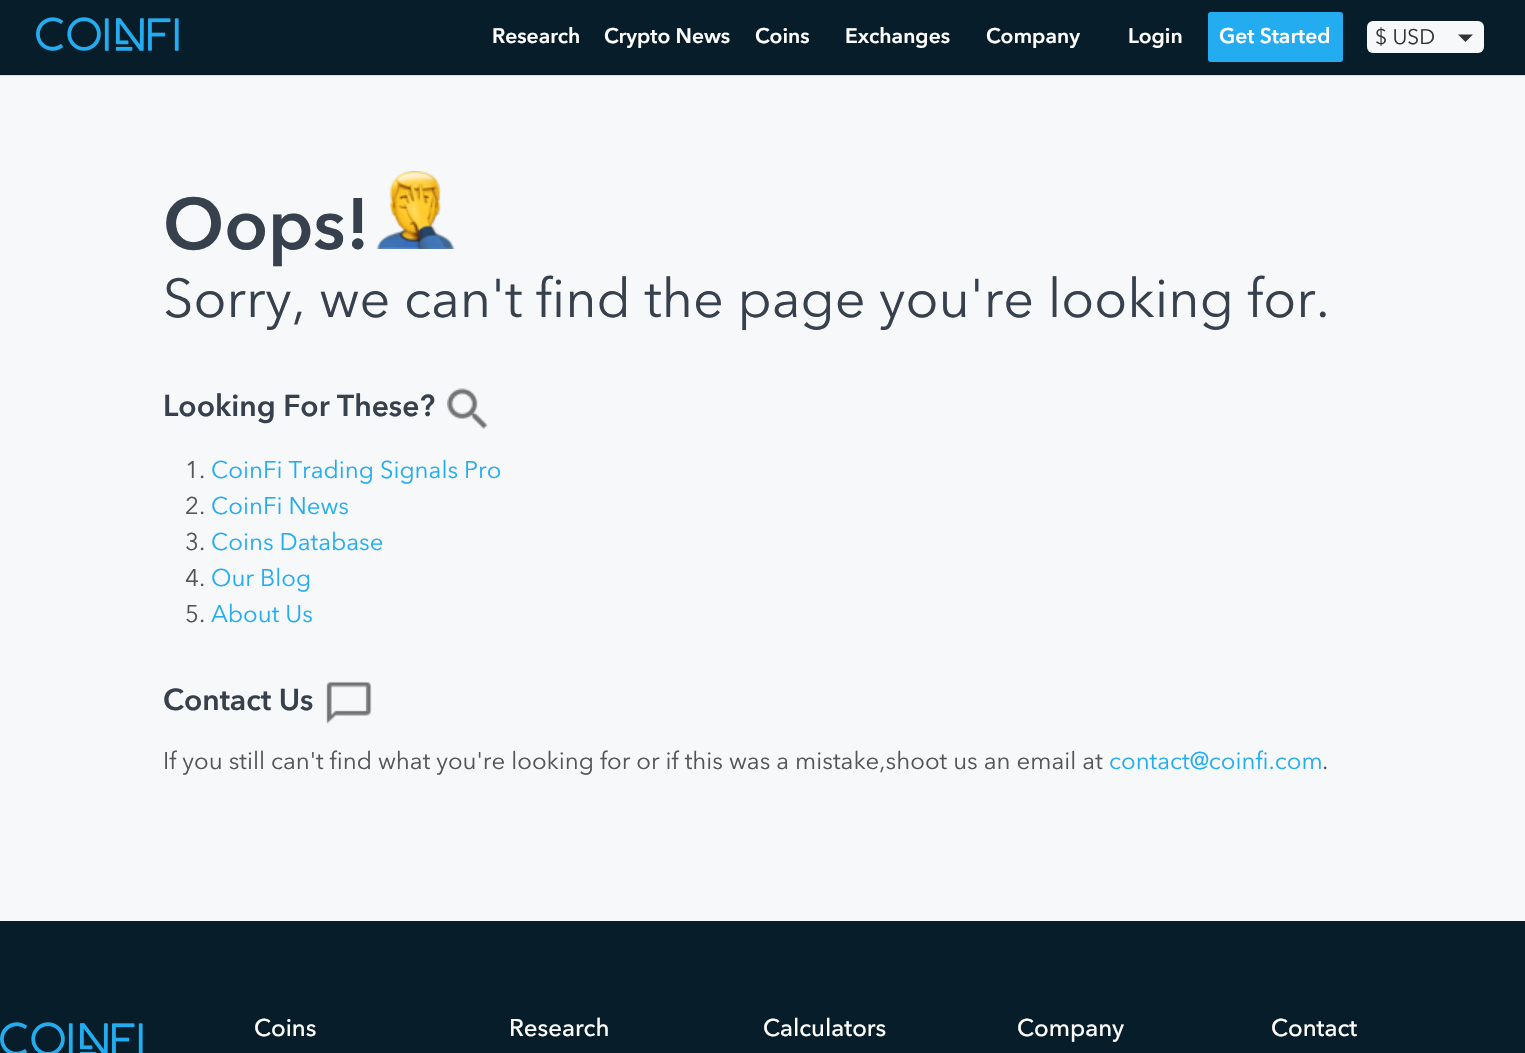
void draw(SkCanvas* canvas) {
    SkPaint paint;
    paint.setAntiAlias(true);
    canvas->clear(0xFFF7F8FA);
    paint.setColor(0xFF071D29);
    canvas->drawRect(SkRect::MakeXYWH(0, 0, 1525, 74), paint);
    paint.setColor(0xFF061A25);
    canvas->drawRect(SkRect::MakeXYWH(0, 74, 1525, 1), paint);
    canvas->drawImageRect(SkImages::DeferredFromEncodedData(SkData::MakeFromFileName("img1.png")), SkRect::MakeXYWH(36, 17, 143, 34), SkSamplingOptions());
    SkFont font1(fontMgr->matchFamilyStyle("Avenir Next", SkFontStyle(600, SkFontStyle::kNormal_Width, SkFontStyle::kUpright_Slant)), 21);
    font1.setSubpixel(true);
    paint.setColor(0xFFFFFFFF);
    canvas->drawString("Research", 492, 43, font1, paint);
    canvas->drawString("Crypto News", 604, 43, font1, paint);
    canvas->drawString("Coins", 755, 43, font1, paint);
    canvas->drawString("Exchanges", 845, 43, font1, paint);
    canvas->drawString("Company", 986, 43, font1, paint);
    canvas->drawString("Login", 1128, 43, font1, paint);
    paint.setColor(0xFF23ADF0);
    canvas->drawRoundRect(SkRect::MakeXYWH(1208, 12, 135, 50), 3, 3, paint);
    paint.setColor(0xFFFFFFFF);
    canvas->drawString("Get Started", 1219, 43, font1, paint);
    paint.setColor(0xFFF6F8FA);
    canvas->drawRoundRect(SkRect::MakeXYWH(1367, 21, 117, 32), 6, 6, paint);
    SkFont font2(fontMgr->matchFamilyStyle("Avenir Next", SkFontStyle::Normal()), 21);
    font2.setSubpixel(true);
    paint.setColor(0xFF333333);
    canvas->drawString("$ USD", 1375, 44, font2, paint);
    canvas->drawPath(SkPathBuilder().moveTo(1458, 34.5f).lineTo(1465.5f, 42).lineTo(1473, 34.5f).close().detach(), paint);
    paint.setColor(0xFFDEDFE1);
    canvas->drawRect(SkRect::MakeXYWH(0, 75, 1525, 1), paint);
    SkFont font3(fontMgr->matchFamilyStyle("Avenir Next", SkFontStyle(600, SkFontStyle::kNormal_Width, SkFontStyle::kUpright_Slant)), 72);
    font3.setSubpixel(true);
    paint.setColor(0xFF37404D);
    canvas->drawString("Oops!", 163, 249, font3, paint);
    canvas->drawImageRect(SkImages::DeferredFromEncodedData(SkData::MakeFromFileName("img2.png")), SkRect::MakeXYWH(376, 171, 79, 78), SkSamplingOptions());
    SkFont font4(fontMgr->matchFamilyStyle("Avenir Next", SkFontStyle::Normal()), 54);
    font4.setSubpixel(true);
    canvas->drawString("Sorry, we can't find the page you're looking for.", 163, 317, font4, paint);
    SkFont font5(fontMgr->matchFamilyStyle("Avenir Next", SkFontStyle(600, SkFontStyle::kNormal_Width, SkFontStyle::kUpright_Slant)), 30);
    font5.setSubpixel(true);
    canvas->drawString("Looking For These?", 163, 416, font5, paint);
    canvas->drawImageRect(SkImages::DeferredFromEncodedData(SkData::MakeFromFileName("img3.png")), SkRect::MakeXYWH(447, 388, 41, 41), SkSamplingOptions());
    SkFont font6(fontMgr->matchFamilyStyle("Avenir Next", SkFontStyle::Normal()), 24);
    font6.setSubpixel(true);
    paint.setColor(0xFF555555);
    canvas->drawString("1.", 185, 478, font6, paint);
    paint.setColor(0xFF23ADF0);
    canvas->drawString("CoinFi Trading Signals Pro", 211, 478, font6, paint);
    paint.setColor(0xFF555555);
    canvas->drawString("2.", 185, 514, font6, paint);
    paint.setColor(0xFF23ADF0);
    canvas->drawString("CoinFi News", 211, 514, font6, paint);
    paint.setColor(0xFF555555);
    canvas->drawString("3.", 185, 550, font6, paint);
    paint.setColor(0xFF23ADF0);
    canvas->drawString("Coins Database", 211, 550, font6, paint);
    paint.setColor(0xFF555555);
    canvas->drawString("4.", 185, 586, font6, paint);
    paint.setColor(0xFF23ADF0);
    canvas->drawString("Our Blog", 211, 586, font6, paint);
    paint.setColor(0xFF555555);
    canvas->drawString("5.", 185, 622, font6, paint);
    paint.setColor(0xFF23ADF0);
    canvas->drawString("About Us", 211, 622, font6, paint);
    paint.setColor(0xFF37404D);
    canvas->drawString("Contact Us", 163, 710, font5, paint);
    canvas->drawImageRect(SkImages::DeferredFromEncodedData(SkData::MakeFromFileName("img4.png")), SkRect::MakeXYWH(326, 681, 46, 43), SkSamplingOptions());
    paint.setColor(0xFF555555);
    canvas->drawString("If you still can't find what you're looking for or if this was a mistake,shoot us an email at", 163, 769, font6, paint);
    paint.setColor(0xFF23ADF0);
    canvas->drawString("contact@coinfi.com", 1109, 769, font6, paint);
    paint.setColor(0xFF555555);
    canvas->drawString(".", 1322, 769, font6, paint);
    paint.setColor(0xFF071D29);
    canvas->drawRect(SkRect::MakeXYWH(0, 921, 1525, 132), paint);
    canvas->drawImageRect(SkImages::DeferredFromEncodedData(SkData::MakeFromFileName("img5.png")), SkRect::MakeXYWH(0, 1022, 143, 31), SkSamplingOptions());
    SkFont font7(fontMgr->matchFamilyStyle("Avenir Next", SkFontStyle(500, SkFontStyle::kNormal_Width, SkFontStyle::kUpright_Slant)), 24);
    font7.setSubpixel(true);
    paint.setColor(0xFFFFFFFF);
    canvas->drawString("Coins", 254, 1036, font7, paint);
    canvas->drawString("Research", 509, 1036, font7, paint);
    canvas->drawString("Calculators", 763, 1036, font7, paint);
    canvas->drawString("Company", 1017, 1036, font7, paint);
    canvas->drawString("Contact", 1271, 1036, font7, paint);
}
